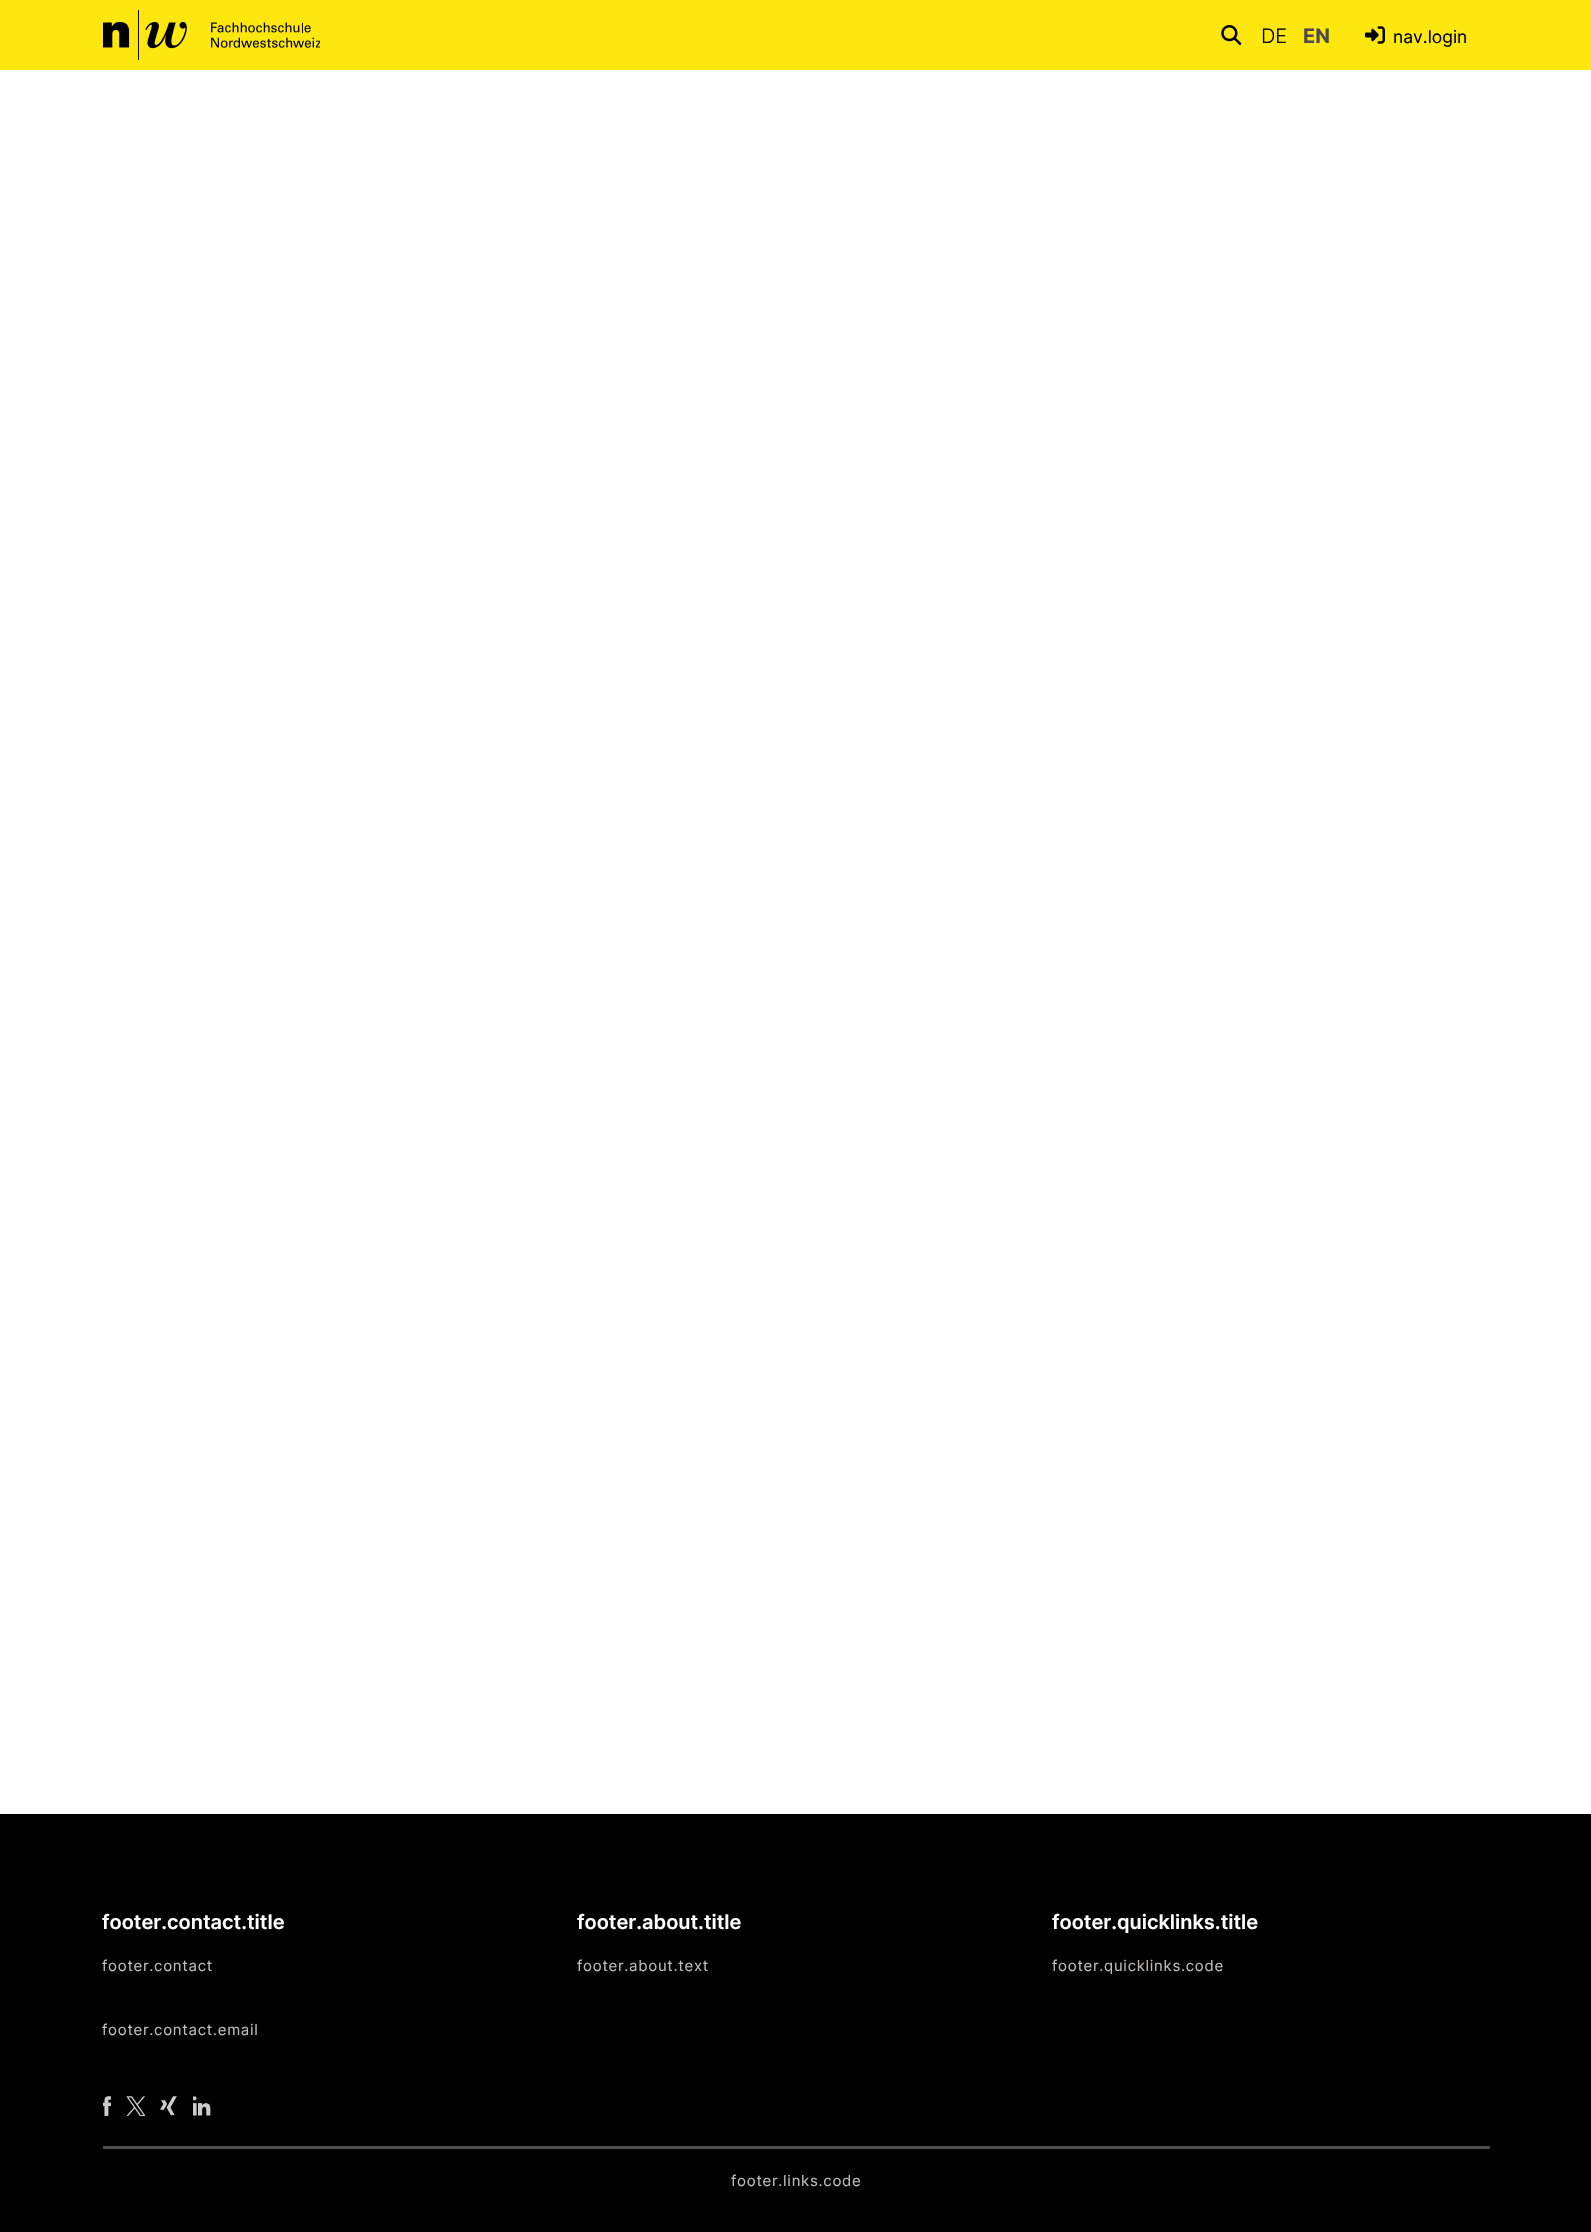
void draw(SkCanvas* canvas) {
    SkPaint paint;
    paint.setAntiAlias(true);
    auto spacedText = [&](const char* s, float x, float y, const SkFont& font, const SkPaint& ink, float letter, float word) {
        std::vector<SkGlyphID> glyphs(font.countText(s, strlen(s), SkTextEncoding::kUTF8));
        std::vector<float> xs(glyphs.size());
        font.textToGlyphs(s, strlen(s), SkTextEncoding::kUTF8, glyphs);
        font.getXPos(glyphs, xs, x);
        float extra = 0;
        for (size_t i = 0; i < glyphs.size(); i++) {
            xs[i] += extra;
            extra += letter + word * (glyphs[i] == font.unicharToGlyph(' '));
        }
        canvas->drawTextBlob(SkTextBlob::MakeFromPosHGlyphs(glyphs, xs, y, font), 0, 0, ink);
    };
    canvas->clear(0xFFFFFFFF);
    paint.setColor(0xFFFDE70E);
    canvas->drawRect(SkRect::MakeXYWH(0, 0, 1591, 70), paint);
    canvas->drawImageRect(SkImages::DeferredFromEncodedData(SkData::MakeFromFileName("img1.png")), SkRect::MakeXYWH(103, 10, 217, 50), SkSamplingOptions());
    canvas->drawImageRect(SkImages::DeferredFromEncodedData(SkData::MakeFromFileName("img2.png")), SkRect::MakeXYWH(1221, 25, 21, 20), SkSamplingOptions());
    SkFont font1(fontMgr->matchFamilyStyle("Inter", SkFontStyle(300, SkFontStyle::kNormal_Width, SkFontStyle::kUpright_Slant)), 20);
    font1.setSubpixel(true);
    paint.setColor(0xFF000000);
    canvas->drawString("DE", 1261, 43, font1, paint);
    SkFont font2(fontMgr->matchFamilyStyle("Inter", SkFontStyle::Bold()), 20);
    font2.setSubpixel(true);
    paint.setColor(0xFF4C4C4C);
    canvas->drawString("EN", 1303, 43, font2, paint);
    canvas->drawImageRect(SkImages::DeferredFromEncodedData(SkData::MakeFromFileName("img3.png")), SkRect::MakeXYWH(1365, 26, 20, 18), SkSamplingOptions());
    SkFont font3(fontMgr->matchFamilyStyle("Inter", SkFontStyle::Normal()), 17.5f);
    font3.setSubpixel(true);
    paint.setColor(0xFF000000);
    canvas->drawString("nav.login", 1393, 43, font3, paint);
    canvas->drawRect(SkRect::MakeXYWH(0, 1814, 1591, 418), paint);
    SkFont font4(fontMgr->matchFamilyStyle("Inter", SkFontStyle(600, SkFontStyle::kNormal_Width, SkFontStyle::kUpright_Slant)), 20);
    font4.setSubpixel(true);
    paint.setColor(0xFFFFFFFF);
    canvas->drawString("footer.contact.title", 102, 1929, font4, paint);
    SkFont font5(fontMgr->matchFamilyStyle("Inter", SkFontStyle::Normal()), 15);
    font5.setSubpixel(true);
    paint.setColor(0xFFBEBDB9);
    spacedText("footer.contact", 102, 1971, font5, paint, 0.7f, 0);
    spacedText("footer.contact.email", 102, 2035, font5, paint, 0.7f, 0);
    canvas->drawImageRect(SkImages::DeferredFromEncodedData(SkData::MakeFromFileName("img4.png")), SkRect::MakeXYWH(103, 2096, 8, 20), SkSamplingOptions());
    canvas->drawImageRect(SkImages::DeferredFromEncodedData(SkData::MakeFromFileName("img5.png")), SkRect::MakeXYWH(126, 2096, 19, 20), SkSamplingOptions());
    canvas->drawImageRect(SkImages::DeferredFromEncodedData(SkData::MakeFromFileName("img6.png")), SkRect::MakeXYWH(160, 2096, 17, 20), SkSamplingOptions());
    canvas->drawImageRect(SkImages::DeferredFromEncodedData(SkData::MakeFromFileName("img7.png")), SkRect::MakeXYWH(193, 2096, 18, 20), SkSamplingOptions());
    paint.setColor(0xFFFFFFFF);
    canvas->drawString("footer.about.title", 577, 1929, font4, paint);
    paint.setColor(0xFFBEBDB9);
    spacedText("footer.about.text", 577, 1971, font5, paint, 0.7f, 0);
    paint.setColor(0xFFFFFFFF);
    canvas->drawString("footer.quicklinks.title", 1052, 1929, font4, paint);
    paint.setColor(0xFFBEBDB9);
    spacedText("footer.quicklinks.code", 1052, 1971, font5, paint, 0.7f, 0);
    paint.setColor(0xFF4C4C4C);
    canvas->drawRect(SkRect::MakeXYWH(103, 2146, 1387, 3), paint);
    paint.setColor(0xFFBEBDB9);
    spacedText("footer.links.code", 731, 2186, font5, paint, 0.7f, 0);
}
